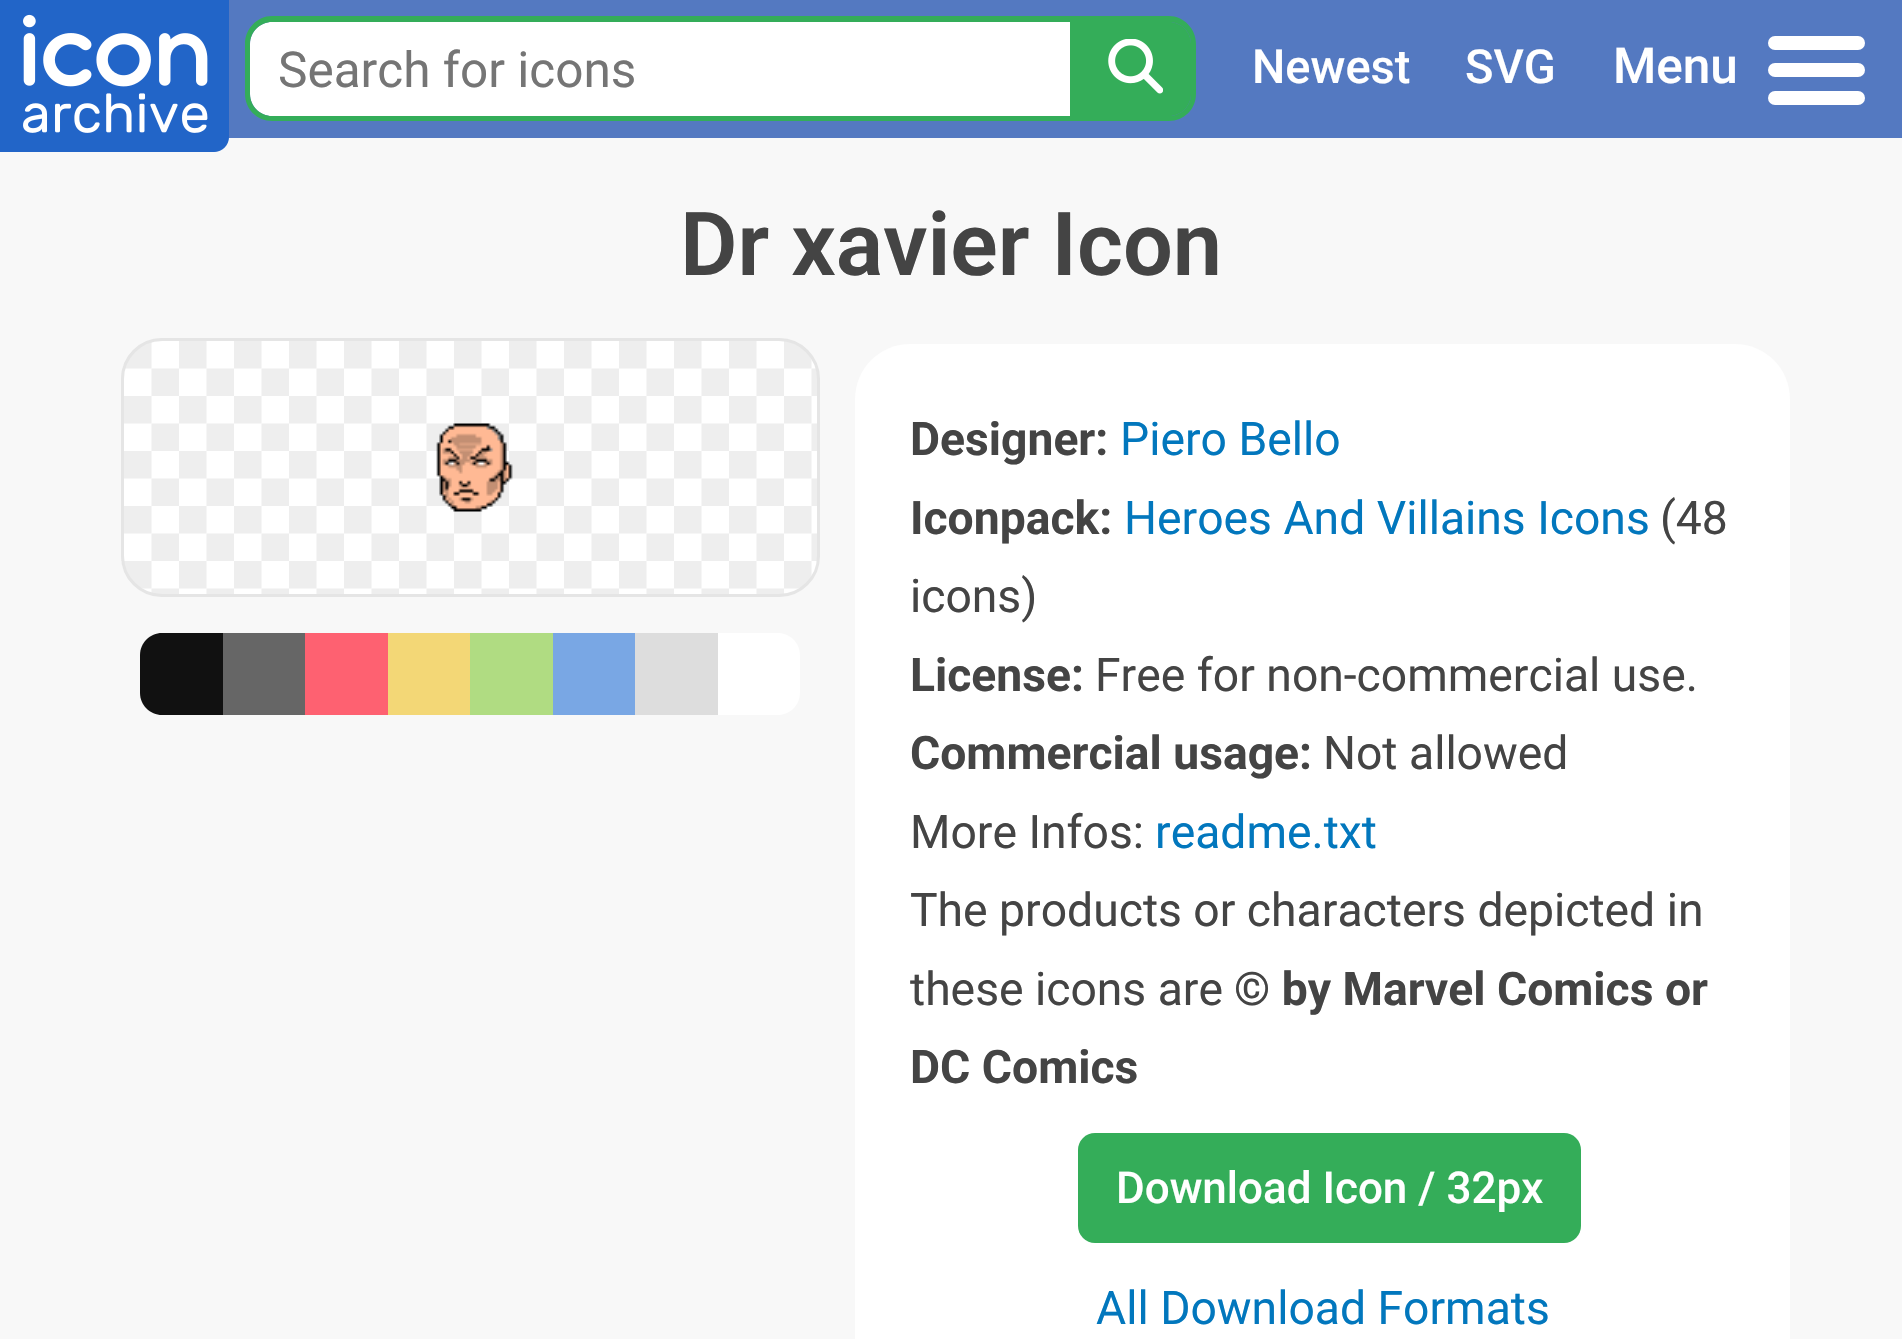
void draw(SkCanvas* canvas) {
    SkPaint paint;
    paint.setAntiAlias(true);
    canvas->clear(0xFFF8F8F8);
    paint.setColor(0xFF5479C1);
    canvas->drawRect(SkRect::MakeXYWH(228, 0, 1674, 138), paint);
    canvas->drawImageRect(SkImages::DeferredFromEncodedData(SkData::MakeFromFileName("img1.png")), SkRect::MakeXYWH(0, 0, 229, 152), SkSamplingOptions());
    paint.setColor(0xFFFFFFFF);
    canvas->drawPath(SkPathBuilder().moveTo(272, 22).lineTo(1070, 22).lineTo(1070, 116).lineTo(272, 116).cubicTo(260, 116, 250, 106, 250, 94).lineTo(250, 44).cubicTo(250, 32, 260, 22, 272, 22).close().detach(), paint);
    paint.setColor(0xFF34AD59);
    canvas->drawPath(SkPathBuilder(SkPathFillType::kEvenOdd).moveTo(272, 16).lineTo(1070, 16).lineTo(1070, 121).lineTo(272, 121).cubicTo(257, 121, 245, 109, 245, 94).lineTo(245, 44).cubicTo(245, 29, 257, 16, 272, 16).close().moveTo(272, 22).lineTo(1070, 22).lineTo(1070, 116).lineTo(272, 116).cubicTo(260, 116, 250, 106, 250, 94).lineTo(250, 44).cubicTo(250, 32, 260, 22, 272, 22).close().detach(), paint);
    SkFont font1(fontMgr->matchFamilyStyle("Roboto", SkFontStyle::Normal()), 49.5f);
    font1.setSubpixel(true);
    paint.setColor(0xFF757575);
    canvas->drawString("Search for icons", 278, 87, font1, paint);
    paint.setColor(0xFF34AD59);
    canvas->drawPath(SkPathBuilder().moveTo(1070, 22).lineTo(1169, 22).cubicTo(1181, 22, 1191, 32, 1191, 44).lineTo(1191, 94).cubicTo(1191, 106, 1181, 116, 1169, 116).lineTo(1070, 116).close().detach(), paint);
    canvas->drawPath(SkPathBuilder(SkPathFillType::kEvenOdd).moveTo(1070, 16).lineTo(1169, 16).cubicTo(1184, 16, 1196, 29, 1196, 44).lineTo(1196, 94).cubicTo(1196, 109, 1184, 121, 1169, 121).lineTo(1070, 121).close().moveTo(1070, 22).lineTo(1169, 22).cubicTo(1181, 22, 1191, 32, 1191, 44).lineTo(1191, 94).cubicTo(1191, 106, 1181, 116, 1169, 116).lineTo(1070, 116).close().detach(), paint);
    canvas->drawImageRect(SkImages::DeferredFromEncodedData(SkData::MakeFromFileName("img2.png")), SkRect::MakeXYWH(1108, 39, 55, 55), SkSamplingOptions());
    SkFont font2(fontMgr->matchFamilyStyle("Roboto", SkFontStyle(500, SkFontStyle::kNormal_Width, SkFontStyle::kUpright_Slant)), 47);
    font2.setSubpixel(true);
    paint.setColor(0xFFFFFFFF);
    canvas->drawString("Newest", 1252, 83, font2, paint);
    canvas->drawString("SVG", 1465, 83, font2, paint);
    SkFont font3(fontMgr->matchFamilyStyle("Roboto", SkFontStyle(500, SkFontStyle::kNormal_Width, SkFontStyle::kUpright_Slant)), 49.5f);
    font3.setSubpixel(true);
    canvas->drawString("Menu", 1613, 83, font3, paint);
    canvas->drawRoundRect(SkRect::MakeXYWH(1768, 36, 97, 14), 7, 7, paint);
    canvas->drawRoundRect(SkRect::MakeXYWH(1768, 63, 97, 14), 7, 7, paint);
    canvas->drawRoundRect(SkRect::MakeXYWH(1768, 91, 97, 14), 7, 7, paint);
    SkFont font4(fontMgr->matchFamilyStyle("Roboto", SkFontStyle(600, SkFontStyle::kNormal_Width, SkFontStyle::kUpright_Slant)), 88.25f);
    font4.setSubpixel(true);
    paint.setColor(0xFF444444);
    canvas->drawString("Dr xavier Icon", 680, 275, font4, paint);
    canvas->drawImageRect(SkImages::DeferredFromEncodedData(SkData::MakeFromFileName("img3.png")), SkRect::MakeXYWH(121, 338, 698, 259), SkSamplingOptions());
    paint.setStyle(SkPaint::kStroke_Style);
    paint.setStrokeWidth(3);
    paint.setColor(0xFFE5E5E5);
    canvas->drawRoundRect(SkRect::MakeXYWH(122.5f, 339.5f, 696, 256), 39.5f, 39.5f, paint);
    canvas->drawImageRect(SkImages::DeferredFromEncodedData(SkData::MakeFromFileName("img4.png")), SkRect::MakeXYWH(436, 423, 77, 89), SkSamplingOptions());
    paint.setStyle(SkPaint::kFill_Style);
    paint.setColor(0xFF111111);
    canvas->drawPath(SkPathBuilder().moveTo(162, 633).lineTo(223, 633).lineTo(223, 715).lineTo(162, 715).cubicTo(150, 715, 140, 705, 140, 693).lineTo(140, 655).cubicTo(140, 643, 150, 633, 162, 633).close().detach(), paint);
    paint.setColor(0xFF666666);
    canvas->drawRect(SkRect::MakeXYWH(223, 633, 82, 82), paint);
    paint.setColor(0xFFFE6171);
    canvas->drawRect(SkRect::MakeXYWH(305, 633, 83, 82), paint);
    paint.setColor(0xFFF3D776);
    canvas->drawRect(SkRect::MakeXYWH(388, 633, 82, 82), paint);
    paint.setColor(0xFFB0DC82);
    canvas->drawRect(SkRect::MakeXYWH(470, 633, 83, 82), paint);
    paint.setColor(0xFF79A7E4);
    canvas->drawRect(SkRect::MakeXYWH(553, 633, 82, 82), paint);
    paint.setColor(0xFFDDDDDD);
    canvas->drawRect(SkRect::MakeXYWH(635, 633, 83, 82), paint);
    paint.setColor(0xFFFFFFFF);
    canvas->drawPath(SkPathBuilder().moveTo(718, 633).lineTo(778, 633).cubicTo(790, 633, 800, 643, 800, 655).lineTo(800, 693).cubicTo(800, 705, 790, 715, 778, 715).lineTo(718, 715).close().detach(), paint);
    canvas->drawRoundRect(SkRect::MakeXYWH(855, 344, 935, 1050), 55, 55, paint);
    SkFont font5(fontMgr->matchFamilyStyle("Roboto", SkFontStyle::Bold()), 46.25f);
    font5.setSubpixel(true);
    paint.setColor(0xFF444444);
    canvas->drawString("Designer:", 910, 455, font5, paint);
    SkFont font6(fontMgr->matchFamilyStyle("Roboto", SkFontStyle::Normal()), 46.25f);
    font6.setSubpixel(true);
    paint.setColor(0xFF0277BD);
    canvas->drawString("Piero Bello", 1120, 455, font6, paint);
    paint.setColor(0xFF444444);
    canvas->drawString("Iconpack:", 910, 534, font5, paint);
    paint.setColor(0xFF0277BD);
    canvas->drawString("Heroes And Villains Icons", 1124, 534, font6, paint);
    paint.setColor(0xFF444444);
    canvas->drawString("(48", 1660, 534, font6, paint);
    canvas->drawString("icons)", 910, 612, font6, paint);
    canvas->drawString("License:", 910, 691, font5, paint);
    canvas->drawString("Free for non-commercial use.", 1095, 691, font6, paint);
    canvas->drawString("Commercial usage:", 910, 769, font5, paint);
    canvas->drawString("Not allowed", 1323, 769, font6, paint);
    canvas->drawString("More Infos:", 910, 848, font6, paint);
    paint.setColor(0xFF0277BD);
    canvas->drawString("readme.txt", 1155, 848, font6, paint);
    paint.setColor(0xFF444444);
    canvas->drawString("The products or characters depicted in", 910, 926, font6, paint);
    canvas->drawString("these icons are", 910, 1005, font6, paint);
    canvas->drawString("© by Marvel Comics or", 1234, 1005, font5, paint);
    canvas->drawString("DC Comics", 910, 1083, font5, paint);
    paint.setColor(0xFF34AD59);
    canvas->drawRoundRect(SkRect::MakeXYWH(1078, 1133, 503, 110), 17, 17, paint);
    SkFont font7(fontMgr->matchFamilyStyle("Roboto", SkFontStyle(500, SkFontStyle::kNormal_Width, SkFontStyle::kUpright_Slant)), 44);
    font7.setSubpixel(true);
    paint.setColor(0xFFFFFFFF);
    canvas->drawString("Download Icon / 32px", 1116, 1203, font7, paint);
    paint.setColor(0xFF0277BD);
    canvas->drawString("All Download Formats", 1096, 1324, font6, paint);
}
